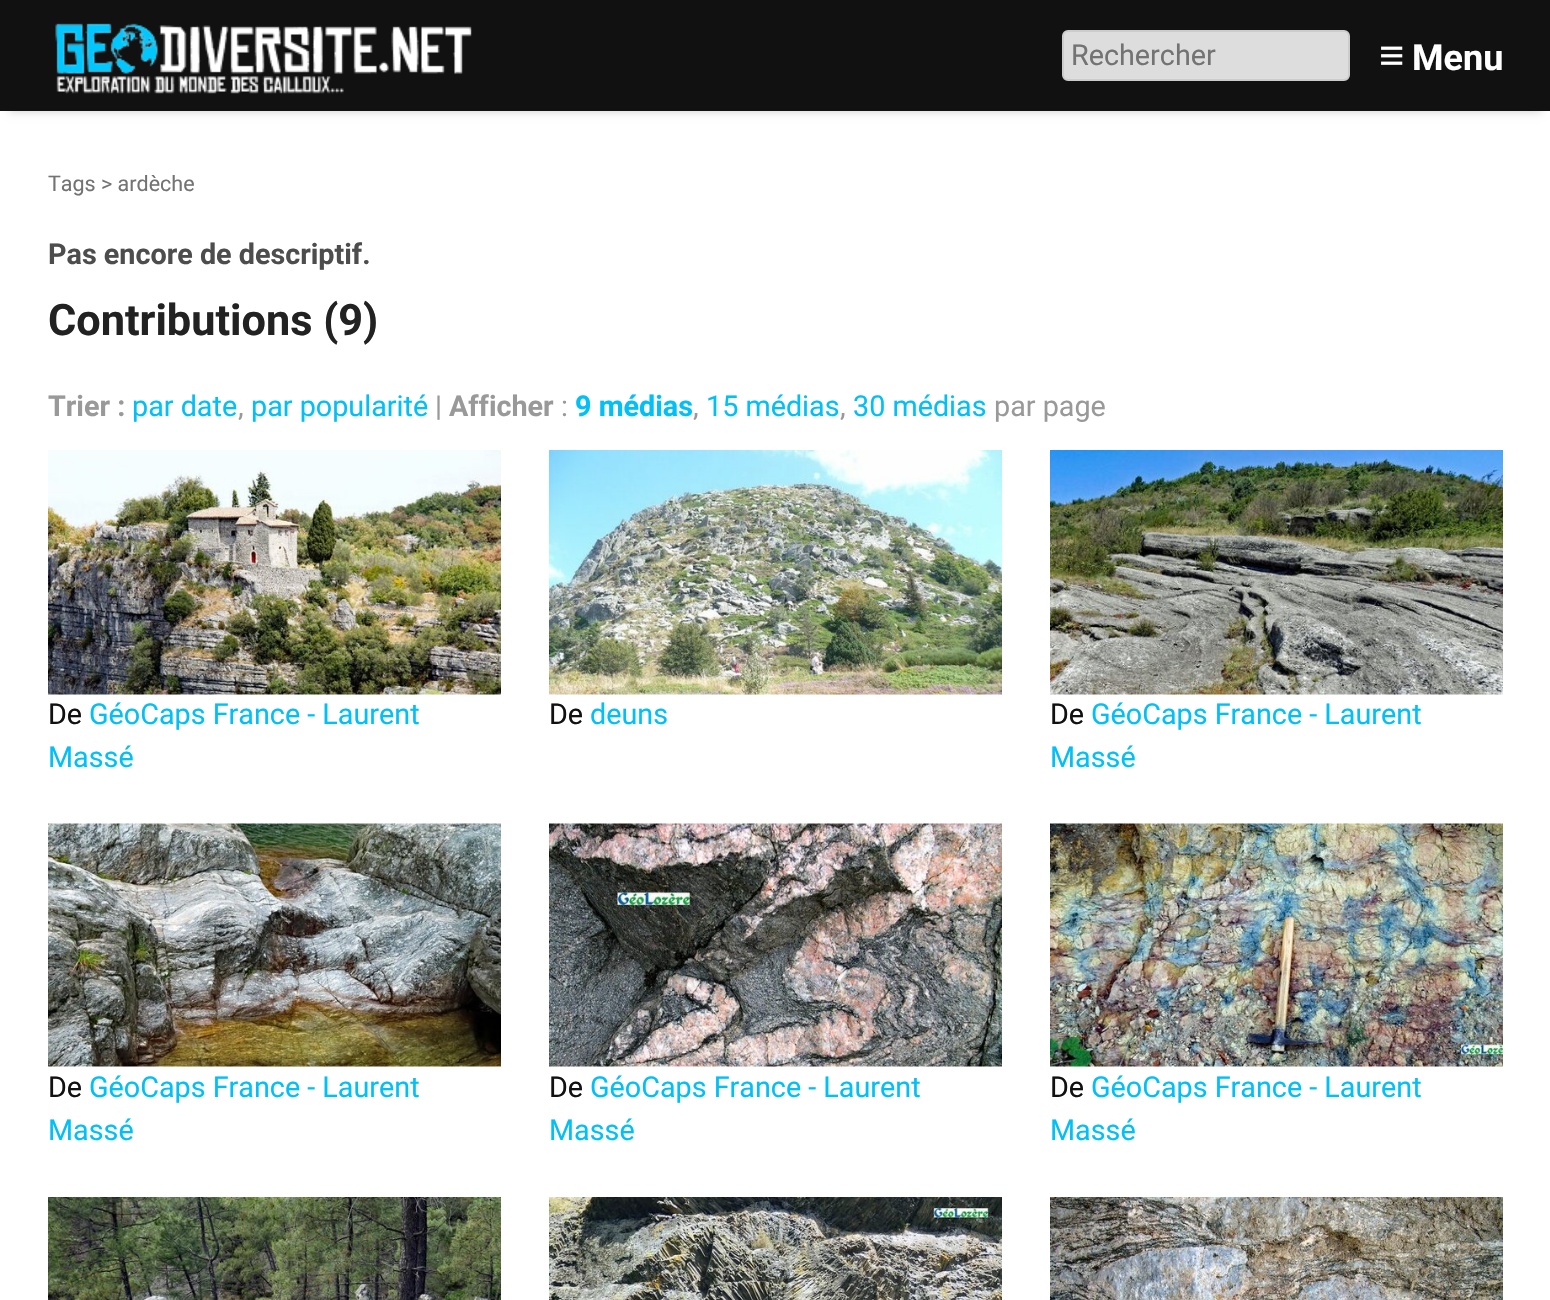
void draw(SkCanvas* canvas) {
    SkPaint paint;
    paint.setAntiAlias(true);
    canvas->clear(0xFFFFFFFF);
    paint.setColor(0x33000000);
    paint.setMaskFilter(SkMaskFilter::MakeBlur(kNormal_SkBlurStyle, 4.5f));
    canvas->drawRect(SkRect::MakeXYWH(9, 18, 1533, 93), paint);
    paint.setMaskFilter(nullptr);
    paint.setColor(0xFF111111);
    canvas->drawRect(SkRect::MakeXYWH(0, 0, 1550, 111), paint);
    canvas->drawImageRect(SkImages::DeferredFromEncodedData(SkData::MakeFromFileName("img1.png")), SkRect::MakeXYWH(55, 23, 417, 71), SkSamplingOptions());
    paint.setColor(0xFFDDDDDD);
    canvas->drawRoundRect(SkRect::MakeXYWH(1063, 31, 286, 49), 5, 5, paint);
    paint.setStyle(SkPaint::kStroke_Style);
    paint.setStrokeWidth(2);
    paint.setColor(0xFFCCCCCC);
    canvas->drawRoundRect(SkRect::MakeXYWH(1063, 31, 286, 49), 5, 5, paint);
    SkFont font1(fontMgr->matchFamilyStyle("Roboto", SkFontStyle::Normal()), 28.75f);
    font1.setSubpixel(true);
    paint.setStyle(SkPaint::kFill_Style);
    paint.setColor(0xFF737373);
    canvas->drawString("Rechercher", 1071, 65, font1, paint);
    SkFont font2(fontMgr->matchFamilyStyle("Liberation Sans", SkFontStyle::Bold()), 43.25f);
    font2.setSubpixel(true);
    paint.setColor(0xFFFFFFFF);
    canvas->drawString("≡", 1379, 70, font2, paint);
    SkFont font3(fontMgr->matchFamilyStyle("Roboto", SkFontStyle::Bold()), 36);
    font3.setSubpixel(true);
    canvas->drawString("Menu", 1412, 70, font3, paint);
    SkFont font4(fontMgr->matchFamilyStyle("Roboto", SkFontStyle::Normal()), 21.5f);
    font4.setSubpixel(true);
    paint.setColor(0xFF737373);
    canvas->drawString("Tags > ardèche", 48, 191, font4, paint);
    SkFont font5(fontMgr->matchFamilyStyle("Roboto", SkFontStyle::Bold()), 28.75f);
    font5.setSubpixel(true);
    paint.setColor(0xFF4D4D4D);
    canvas->drawString("Pas encore de descriptif.", 48, 264, font5, paint);
    SkFont font6(fontMgr->matchFamilyStyle("Roboto", SkFontStyle::Bold()), 43.25f);
    font6.setSubpixel(true);
    paint.setColor(0xFF222222);
    canvas->drawString("Contributions (9)", 48, 335, font6, paint);
    paint.setColor(0xFF999999);
    canvas->drawString("Trier :", 48, 416, font5, paint);
    paint.setColor(0xFF00C0F8);
    canvas->drawString("par date", 132, 416, font1, paint);
    paint.setColor(0xFF999999);
    canvas->drawString(",", 238, 416, font1, paint);
    paint.setColor(0xFF00C0F8);
    canvas->drawString("par popularité", 251, 416, font1, paint);
    paint.setColor(0xFF999999);
    canvas->drawString("|", 435, 416, font1, paint);
    canvas->drawString("Afficher", 449, 416, font5, paint);
    canvas->drawString(":", 561, 416, font1, paint);
    paint.setColor(0xFF00C0F8);
    canvas->drawString("9 médias", 575, 416, font5, paint);
    paint.setColor(0xFF999999);
    canvas->drawString(",", 693, 416, font1, paint);
    paint.setColor(0xFF00C0F8);
    canvas->drawString("15 médias", 706, 416, font1, paint);
    paint.setColor(0xFF999999);
    canvas->drawString(",", 840, 416, font1, paint);
    paint.setColor(0xFF00C0F8);
    canvas->drawString("30 médias", 853, 416, font1, paint);
    paint.setColor(0xFF999999);
    canvas->drawString("par page", 994, 416, font1, paint);
    canvas->drawImageRect(SkImages::DeferredFromEncodedData(SkData::MakeFromFileName("img2.png")), SkRect::MakeXYWH(48, 450, 453, 245), SkSamplingOptions());
    paint.setColor(0xFF111111);
    canvas->drawString("De", 48, 724, font1, paint);
    paint.setColor(0xFF00C0F8);
    canvas->drawString("GéoCaps France - Laurent", 89, 724, font1, paint);
    canvas->drawString("Massé", 48, 767, font1, paint);
    canvas->drawImageRect(SkImages::DeferredFromEncodedData(SkData::MakeFromFileName("img3.png")), SkRect::MakeXYWH(549, 450, 453, 245), SkSamplingOptions());
    paint.setColor(0xFF111111);
    canvas->drawString("De", 549, 724, font1, paint);
    paint.setColor(0xFF00C0F8);
    canvas->drawString("deuns", 590, 724, font1, paint);
    canvas->drawImageRect(SkImages::DeferredFromEncodedData(SkData::MakeFromFileName("img4.png")), SkRect::MakeXYWH(1050, 450, 453, 245), SkSamplingOptions());
    paint.setColor(0xFF111111);
    canvas->drawString("De", 1050, 724, font1, paint);
    paint.setColor(0xFF00C0F8);
    canvas->drawString("GéoCaps France - Laurent", 1091, 724, font1, paint);
    canvas->drawString("Massé", 1050, 767, font1, paint);
    canvas->drawImageRect(SkImages::DeferredFromEncodedData(SkData::MakeFromFileName("img5.png")), SkRect::MakeXYWH(48, 823, 453, 244), SkSamplingOptions());
    paint.setColor(0xFF111111);
    canvas->drawString("De", 48, 1097, font1, paint);
    paint.setColor(0xFF00C0F8);
    canvas->drawString("GéoCaps France - Laurent", 89, 1097, font1, paint);
    canvas->drawString("Massé", 48, 1140, font1, paint);
    canvas->drawImageRect(SkImages::DeferredFromEncodedData(SkData::MakeFromFileName("img6.png")), SkRect::MakeXYWH(549, 823, 453, 244), SkSamplingOptions());
    paint.setColor(0xFF111111);
    canvas->drawString("De", 549, 1097, font1, paint);
    paint.setColor(0xFF00C0F8);
    canvas->drawString("GéoCaps France - Laurent", 590, 1097, font1, paint);
    canvas->drawString("Massé", 549, 1140, font1, paint);
    canvas->drawImageRect(SkImages::DeferredFromEncodedData(SkData::MakeFromFileName("img7.png")), SkRect::MakeXYWH(1050, 823, 453, 244), SkSamplingOptions());
    paint.setColor(0xFF111111);
    canvas->drawString("De", 1050, 1097, font1, paint);
    paint.setColor(0xFF00C0F8);
    canvas->drawString("GéoCaps France - Laurent", 1091, 1097, font1, paint);
    canvas->drawString("Massé", 1050, 1140, font1, paint);
    canvas->drawImageRect(SkImages::DeferredFromEncodedData(SkData::MakeFromFileName("img8.png")), SkRect::MakeXYWH(48, 1197, 453, 103), SkSamplingOptions());
    canvas->drawImageRect(SkImages::DeferredFromEncodedData(SkData::MakeFromFileName("img9.png")), SkRect::MakeXYWH(549, 1197, 453, 103), SkSamplingOptions());
    canvas->drawImageRect(SkImages::DeferredFromEncodedData(SkData::MakeFromFileName("img10.png")), SkRect::MakeXYWH(1050, 1197, 453, 103), SkSamplingOptions());
}
